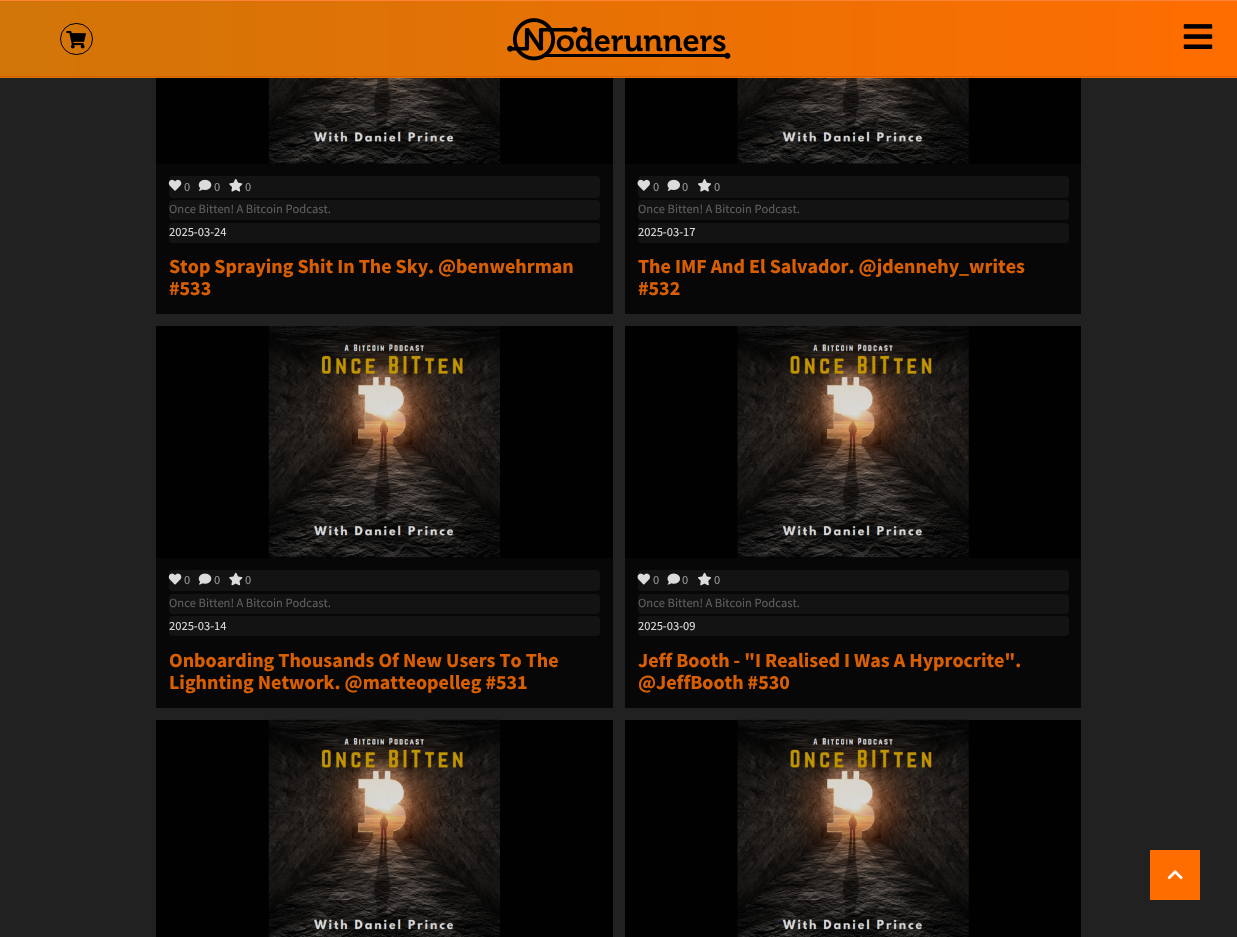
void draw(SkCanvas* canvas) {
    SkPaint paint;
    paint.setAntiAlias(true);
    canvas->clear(0xFF212121);
    {
        const SkColor colors[] = {0xFFD17508, 0xFFFF6D00};
        const float stops[] = {0, 1};
        const SkPoint ends[] = {{0, 39}, {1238, 39}};
        paint.setShader(SkGradientShader::MakeLinear(ends, colors, stops, 2, SkTileMode::kClamp));
        paint.setAlpha(255);
    }
    canvas->drawRect(SkRect::MakeXYWH(0, 1, 1237, 77), paint);
    paint.setShader(nullptr);
    paint.setColor(0xFFFF8235);
    canvas->drawRect(SkRect::MakeXYWH(0, 0, 1237, 1), paint);
    paint.setColor(0xFFD85D00);
    canvas->drawRect(SkRect::MakeXYWH(0, 76, 1237, 1), paint);
    paint.setStyle(SkPaint::kStroke_Style);
    paint.setStrokeWidth(1);
    paint.setColor(0xFF000000);
    canvas->drawRoundRect(SkRect::MakeXYWH(60.5f, 23.5f, 32, 31), 15.5f, 15.5f, paint);
    canvas->drawImageRect(SkImages::DeferredFromEncodedData(SkData::MakeFromFileName("img1.png")), SkRect::MakeXYWH(66, 30, 20, 19), SkSamplingOptions());
    canvas->drawImageRect(SkImages::DeferredFromEncodedData(SkData::MakeFromFileName("img2.png")), SkRect::MakeXYWH(507, 18, 224, 43), SkSamplingOptions());
    canvas->drawImageRect(SkImages::DeferredFromEncodedData(SkData::MakeFromFileName("img3.png")), SkRect::MakeXYWH(1183, 24, 30, 25), SkSamplingOptions());
    paint.setStyle(SkPaint::kFill_Style);
    paint.setColor(0xFF070707);
    canvas->drawRect(SkRect::MakeXYWH(156, 164, 457, 150), paint);
    paint.setColor(0xFF010101);
    canvas->drawRect(SkRect::MakeXYWH(156, 78, 457, 86), paint);
    canvas->drawImageRect(SkImages::DeferredFromEncodedData(SkData::MakeFromFileName("img4.png")), SkRect::MakeXYWH(268, 78, 232, 86), SkSamplingOptions());
    paint.setColor(0xFF131313);
    canvas->drawRoundRect(SkRect::MakeXYWH(169, 176, 431, 22), 4, 4, paint);
    canvas->drawImageRect(SkImages::DeferredFromEncodedData(SkData::MakeFromFileName("img5.png")), SkRect::MakeXYWH(168, 179, 14, 12), SkSamplingOptions());
    SkFont font1(fontMgr->matchFamilyStyle("Source Sans Pro", SkFontStyle::Normal()), 12.5f);
    font1.setSubpixel(true);
    paint.setColor(0xFF929292);
    canvas->drawString("0", 184, 191, font1, paint);
    canvas->drawImageRect(SkImages::DeferredFromEncodedData(SkData::MakeFromFileName("img6.png")), SkRect::MakeXYWH(198, 179, 14, 12), SkSamplingOptions());
    canvas->drawString("0", 214, 191, font1, paint);
    canvas->drawImageRect(SkImages::DeferredFromEncodedData(SkData::MakeFromFileName("img7.png")), SkRect::MakeXYWH(229, 179, 14, 13), SkSamplingOptions());
    canvas->drawString("0", 245, 191, font1, paint);
    paint.setColor(0xFF131313);
    canvas->drawRoundRect(SkRect::MakeXYWH(169, 200, 431, 20), 4, 4, paint);
    paint.setColor(0xFF5D5D5D);
    canvas->drawString("Once Bitten! A Bitcoin Podcast.", 169, 213, font1, paint);
    paint.setColor(0xFF131313);
    canvas->drawRoundRect(SkRect::MakeXYWH(169, 223, 431, 20), 4, 4, paint);
    paint.setColor(0xFFDADADA);
    canvas->drawString("2025-03-24", 169, 236, font1, paint);
    SkFont font2(fontMgr->matchFamilyStyle("Source Sans Pro", SkFontStyle::Bold()), 20);
    font2.setSubpixel(true);
    paint.setColor(0xFFD85E01);
    canvas->drawString("Stop Spraying Shit In The Sky. @benwehrman", 169, 273, font2, paint);
    canvas->drawString("#533", 169, 295, font2, paint);
    paint.setColor(0xFF070707);
    canvas->drawRect(SkRect::MakeXYWH(625, 164, 456, 150), paint);
    paint.setColor(0xFF010101);
    canvas->drawRect(SkRect::MakeXYWH(625, 78, 456, 86), paint);
    canvas->drawImageRect(SkImages::DeferredFromEncodedData(SkData::MakeFromFileName("img8.png")), SkRect::MakeXYWH(737, 78, 232, 86), SkSamplingOptions());
    paint.setColor(0xFF131313);
    canvas->drawRoundRect(SkRect::MakeXYWH(638, 176, 431, 22), 4, 4, paint);
    canvas->drawImageRect(SkImages::DeferredFromEncodedData(SkData::MakeFromFileName("img9.png")), SkRect::MakeXYWH(637, 179, 13, 12), SkSamplingOptions());
    paint.setColor(0xFF929292);
    canvas->drawString("0", 653, 191, font1, paint);
    canvas->drawImageRect(SkImages::DeferredFromEncodedData(SkData::MakeFromFileName("img10.png")), SkRect::MakeXYWH(667, 179, 13, 12), SkSamplingOptions());
    canvas->drawString("0", 682, 191, font1, paint);
    canvas->drawImageRect(SkImages::DeferredFromEncodedData(SkData::MakeFromFileName("img11.png")), SkRect::MakeXYWH(698, 179, 13, 13), SkSamplingOptions());
    canvas->drawString("0", 714, 191, font1, paint);
    paint.setColor(0xFF131313);
    canvas->drawRoundRect(SkRect::MakeXYWH(638, 200, 431, 20), 4, 4, paint);
    paint.setColor(0xFF5D5D5D);
    canvas->drawString("Once Bitten! A Bitcoin Podcast.", 638, 213, font1, paint);
    paint.setColor(0xFF131313);
    canvas->drawRoundRect(SkRect::MakeXYWH(638, 223, 431, 20), 4, 4, paint);
    paint.setColor(0xFFDADADA);
    canvas->drawString("2025-03-17", 638, 236, font1, paint);
    paint.setColor(0xFFD85E01);
    canvas->drawString("The IMF And El Salvador. @jdennehy_writes", 638, 273, font2, paint);
    canvas->drawString("#532", 638, 295, font2, paint);
    paint.setColor(0xFF070707);
    canvas->drawRect(SkRect::MakeXYWH(156, 558, 457, 150), paint);
    paint.setColor(0xFF010101);
    canvas->drawRect(SkRect::MakeXYWH(156, 326, 457, 232), paint);
    canvas->drawImageRect(SkImages::DeferredFromEncodedData(SkData::MakeFromFileName("img12.png")), SkRect::MakeXYWH(268, 326, 232, 232), SkSamplingOptions());
    paint.setColor(0xFF131313);
    canvas->drawRoundRect(SkRect::MakeXYWH(169, 570, 431, 21), 4, 4, paint);
    canvas->drawImageRect(SkImages::DeferredFromEncodedData(SkData::MakeFromFileName("img13.png")), SkRect::MakeXYWH(168, 573, 14, 12), SkSamplingOptions());
    paint.setColor(0xFF929292);
    canvas->drawString("0", 184, 584, font1, paint);
    canvas->drawImageRect(SkImages::DeferredFromEncodedData(SkData::MakeFromFileName("img14.png")), SkRect::MakeXYWH(198, 573, 14, 12), SkSamplingOptions());
    canvas->drawString("0", 214, 584, font1, paint);
    canvas->drawImageRect(SkImages::DeferredFromEncodedData(SkData::MakeFromFileName("img15.png")), SkRect::MakeXYWH(229, 572, 14, 14), SkSamplingOptions());
    canvas->drawString("0", 245, 584, font1, paint);
    paint.setColor(0xFF131313);
    canvas->drawRoundRect(SkRect::MakeXYWH(169, 594, 431, 20), 4, 4, paint);
    paint.setColor(0xFF5D5D5D);
    canvas->drawString("Once Bitten! A Bitcoin Podcast.", 169, 607, font1, paint);
    paint.setColor(0xFF131313);
    canvas->drawRoundRect(SkRect::MakeXYWH(169, 616, 431, 20), 4, 4, paint);
    paint.setColor(0xFFDADADA);
    canvas->drawString("2025-03-14", 169, 630, font1, paint);
    paint.setColor(0xFFD85E01);
    canvas->drawString("Onboarding Thousands Of New Users To The", 169, 667, font2, paint);
    canvas->drawString("Lighnting Network. @matteopelleg #531", 169, 689, font2, paint);
    paint.setColor(0xFF070707);
    canvas->drawRect(SkRect::MakeXYWH(625, 558, 456, 150), paint);
    paint.setColor(0xFF010101);
    canvas->drawRect(SkRect::MakeXYWH(625, 326, 456, 232), paint);
    canvas->drawImageRect(SkImages::DeferredFromEncodedData(SkData::MakeFromFileName("img16.png")), SkRect::MakeXYWH(737, 326, 232, 232), SkSamplingOptions());
    paint.setColor(0xFF131313);
    canvas->drawRoundRect(SkRect::MakeXYWH(638, 570, 431, 21), 4, 4, paint);
    canvas->drawImageRect(SkImages::DeferredFromEncodedData(SkData::MakeFromFileName("img17.png")), SkRect::MakeXYWH(637, 573, 13, 12), SkSamplingOptions());
    paint.setColor(0xFF929292);
    canvas->drawString("0", 653, 584, font1, paint);
    canvas->drawImageRect(SkImages::DeferredFromEncodedData(SkData::MakeFromFileName("img18.png")), SkRect::MakeXYWH(667, 573, 13, 12), SkSamplingOptions());
    canvas->drawString("0", 682, 584, font1, paint);
    canvas->drawImageRect(SkImages::DeferredFromEncodedData(SkData::MakeFromFileName("img19.png")), SkRect::MakeXYWH(698, 572, 13, 14), SkSamplingOptions());
    canvas->drawString("0", 714, 584, font1, paint);
    paint.setColor(0xFF131313);
    canvas->drawRoundRect(SkRect::MakeXYWH(638, 594, 431, 20), 4, 4, paint);
    paint.setColor(0xFF5D5D5D);
    canvas->drawString("Once Bitten! A Bitcoin Podcast.", 638, 607, font1, paint);
    paint.setColor(0xFF131313);
    canvas->drawRoundRect(SkRect::MakeXYWH(638, 616, 431, 20), 4, 4, paint);
    paint.setColor(0xFFDADADA);
    canvas->drawString("2025-03-09", 638, 630, font1, paint);
    paint.setColor(0xFFD85E01);
    canvas->drawString("Jeff Booth - \"I Realised I Was A Hyprocrite\".", 638, 667, font2, paint);
    canvas->drawString("@JeffBooth #530", 638, 689, font2, paint);
    paint.setColor(0xFF010101);
    canvas->drawRect(SkRect::MakeXYWH(156, 720, 457, 217), paint);
    canvas->drawImageRect(SkImages::DeferredFromEncodedData(SkData::MakeFromFileName("img20.png")), SkRect::MakeXYWH(268, 719, 232, 218), SkSamplingOptions());
    canvas->drawRect(SkRect::MakeXYWH(625, 720, 456, 217), paint);
    canvas->drawImageRect(SkImages::DeferredFromEncodedData(SkData::MakeFromFileName("img21.png")), SkRect::MakeXYWH(737, 719, 232, 218), SkSamplingOptions());
    paint.setColor(0xFFFD6D00);
    canvas->drawRect(SkRect::MakeXYWH(1150, 850, 50, 50), paint);
    canvas->drawImageRect(SkImages::DeferredFromEncodedData(SkData::MakeFromFileName("img22.png")), SkRect::MakeXYWH(1167, 870, 16, 10), SkSamplingOptions());
}
